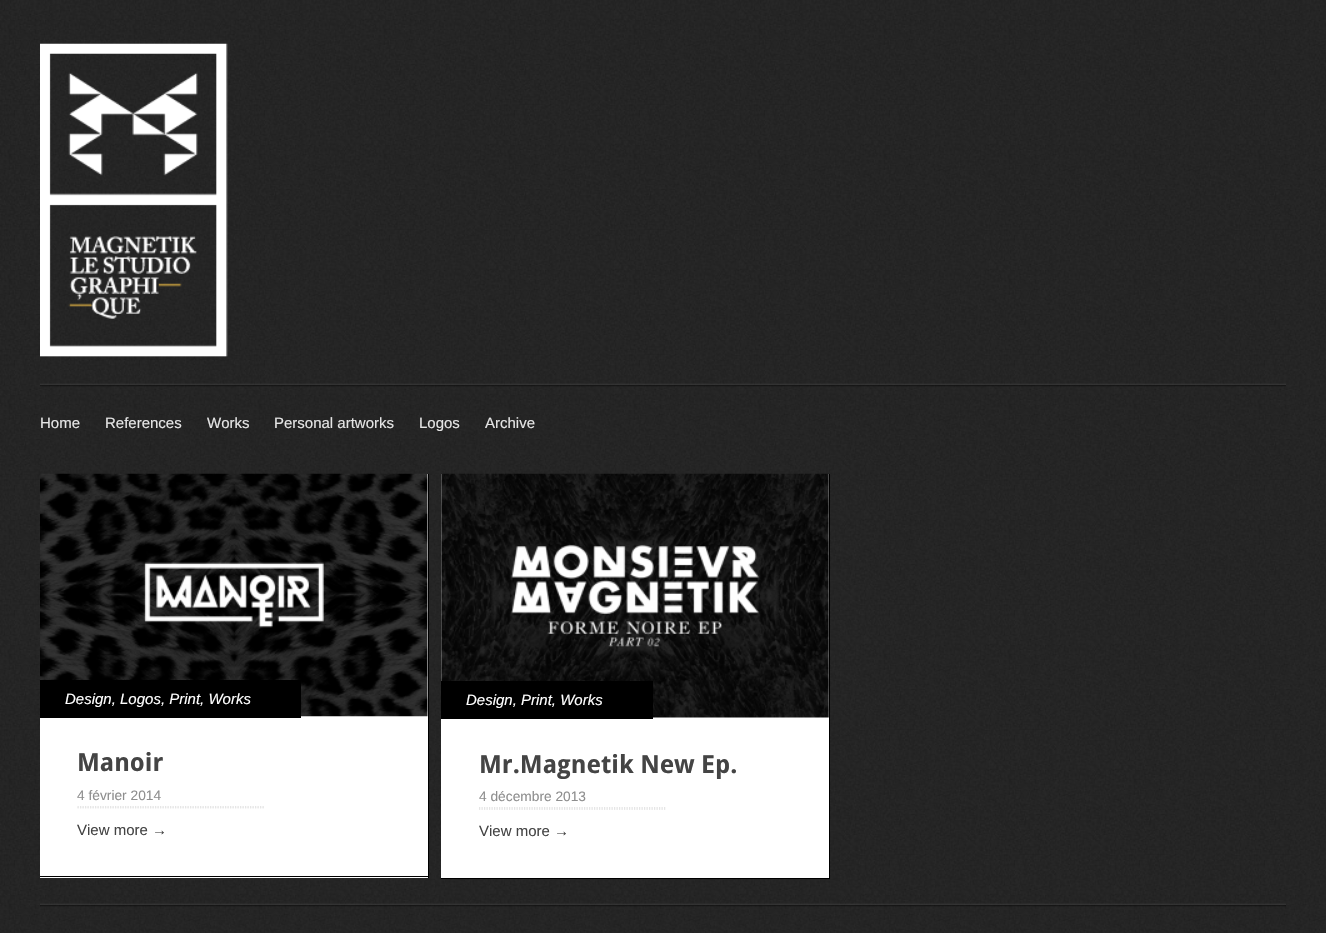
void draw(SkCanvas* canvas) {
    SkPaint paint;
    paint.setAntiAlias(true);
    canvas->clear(0xFFFFFFFF);
    canvas->drawImageRect(SkImages::DeferredFromEncodedData(SkData::MakeFromFileName("img1.png")), SkRect::MakeXYWH(0, 0, 1326, 933), SkSamplingOptions());
    canvas->drawImageRect(SkImages::DeferredFromEncodedData(SkData::MakeFromFileName("img2.png")), SkRect::MakeXYWH(40, 43, 188, 314), SkSamplingOptions());
    canvas->drawImageRect(SkImages::DeferredFromEncodedData(SkData::MakeFromFileName("img3.png")), SkRect::MakeXYWH(40, 383, 1246, 4), SkSamplingOptions());
    SkFont font1(fontMgr->matchFamilyStyle("Liberation Sans", SkFontStyle::Normal()), 15);
    font1.setSubpixel(true);
    paint.setColor(0xFFE5E5E5);
    canvas->drawString("Home", 40, 428, font1, paint);
    canvas->drawString("References", 105, 428, font1, paint);
    canvas->drawString("Works", 207, 428, font1, paint);
    canvas->drawString("Personal artworks", 274, 428, font1, paint);
    canvas->drawString("Logos", 419, 428, font1, paint);
    canvas->drawString("Archive", 485, 428, font1, paint);
    paint.setColor(0xFFFFFFFF);
    canvas->drawRect(SkRect::MakeXYWH(40, 474, 388, 404), paint);
    paint.setColor(0xFF000000);
    canvas->drawRect(SkRect::MakeXYWH(428, 474, 1, 404), paint);
    canvas->drawRect(SkRect::MakeXYWH(40, 876, 389, 1), paint);
    canvas->drawImageRect(SkImages::DeferredFromEncodedData(SkData::MakeFromFileName("img4.png")), SkRect::MakeXYWH(40, 473, 388, 244), SkSamplingOptions());
    canvas->drawRect(SkRect::MakeXYWH(40, 680, 261, 38), paint);
    SkFont font2(fontMgr->matchFamilyStyle("Liberation Sans", SkFontStyle::Italic()), 15);
    font2.setSubpixel(true);
    paint.setColor(0xFFFFFFFF);
    canvas->drawString("Design, Logos, Print, Works", 65, 704, font2, paint);
    SkFont font3(fontMgr->matchFamilyStyle("Droid Sans", SkFontStyle::Bold()), 25);
    font3.setSubpixel(true);
    paint.setColor(0xFF444444);
    canvas->drawString("Manoir", 77, 771, font3, paint);
    paint.setStyle(SkPaint::kStroke_Style);
    paint.setStrokeWidth(1.2f);
    paint.setColor(0xFFCCCCCC);
    paint.setPathEffect(SkDashPathEffect::Make({{1.25f, 1.25f}}, 0));
    canvas->drawPath(SkPathBuilder().moveTo(77.5f, 807).lineTo(265, 807).detach(), paint);
    paint.setPathEffect(nullptr);
    SkFont font4(fontMgr->matchFamilyStyle("Liberation Sans", SkFontStyle::Normal()), 13.75f);
    font4.setSubpixel(true);
    paint.setStyle(SkPaint::kFill_Style);
    paint.setColor(0xFF8E8E8E);
    canvas->drawString("4 février 2014", 77, 800, font4, paint);
    paint.setStyle(SkPaint::kStroke_Style);
    paint.setColor(0xFFE8E8E8);
    paint.setPathEffect(SkDashPathEffect::Make({{1.25f, 1.25f}}, 0));
    canvas->drawPath(SkPathBuilder().moveTo(77.5f, 808).lineTo(265, 808).detach(), paint);
    paint.setPathEffect(nullptr);
    paint.setStyle(SkPaint::kFill_Style);
    paint.setColor(0xFF444444);
    canvas->drawString("View more →", 77, 835, font1, paint);
    paint.setColor(0xFFFFFFFF);
    canvas->drawRect(SkRect::MakeXYWH(441, 474, 388, 404), paint);
    paint.setColor(0xFF000000);
    canvas->drawRect(SkRect::MakeXYWH(829, 474, 1, 405), paint);
    canvas->drawRect(SkRect::MakeXYWH(441, 878, 389, 1), paint);
    canvas->drawImageRect(SkImages::DeferredFromEncodedData(SkData::MakeFromFileName("img5.png")), SkRect::MakeXYWH(441, 473, 388, 245), SkSamplingOptions());
    canvas->drawRect(SkRect::MakeXYWH(441, 681, 212, 38), paint);
    paint.setColor(0xFFFFFFFF);
    canvas->drawString("Design, Print, Works", 466, 705, font2, paint);
    paint.setColor(0xFF444444);
    canvas->drawString("Mr.Magnetik New Ep.", 479, 773, font3, paint);
    paint.setStyle(SkPaint::kStroke_Style);
    paint.setColor(0xFFCCCCCC);
    paint.setPathEffect(SkDashPathEffect::Make({{1.25f, 1.25f}}, 0));
    canvas->drawPath(SkPathBuilder().moveTo(479, 808).lineTo(666, 808).detach(), paint);
    paint.setPathEffect(nullptr);
    paint.setStyle(SkPaint::kFill_Style);
    paint.setColor(0xFF8E8E8E);
    canvas->drawString("4 décembre 2013", 479, 801, font4, paint);
    paint.setStyle(SkPaint::kStroke_Style);
    paint.setColor(0xFFE8E8E8);
    paint.setPathEffect(SkDashPathEffect::Make({{1.25f, 1.25f}}, 0));
    canvas->drawPath(SkPathBuilder().moveTo(479, 809.5f).lineTo(666, 809.5f).detach(), paint);
    paint.setPathEffect(nullptr);
    paint.setStyle(SkPaint::kFill_Style);
    paint.setColor(0xFF444444);
    canvas->drawString("View more →", 479, 836, font1, paint);
    canvas->drawImageRect(SkImages::DeferredFromEncodedData(SkData::MakeFromFileName("img6.png")), SkRect::MakeXYWH(40, 903, 1246, 4), SkSamplingOptions());
}
